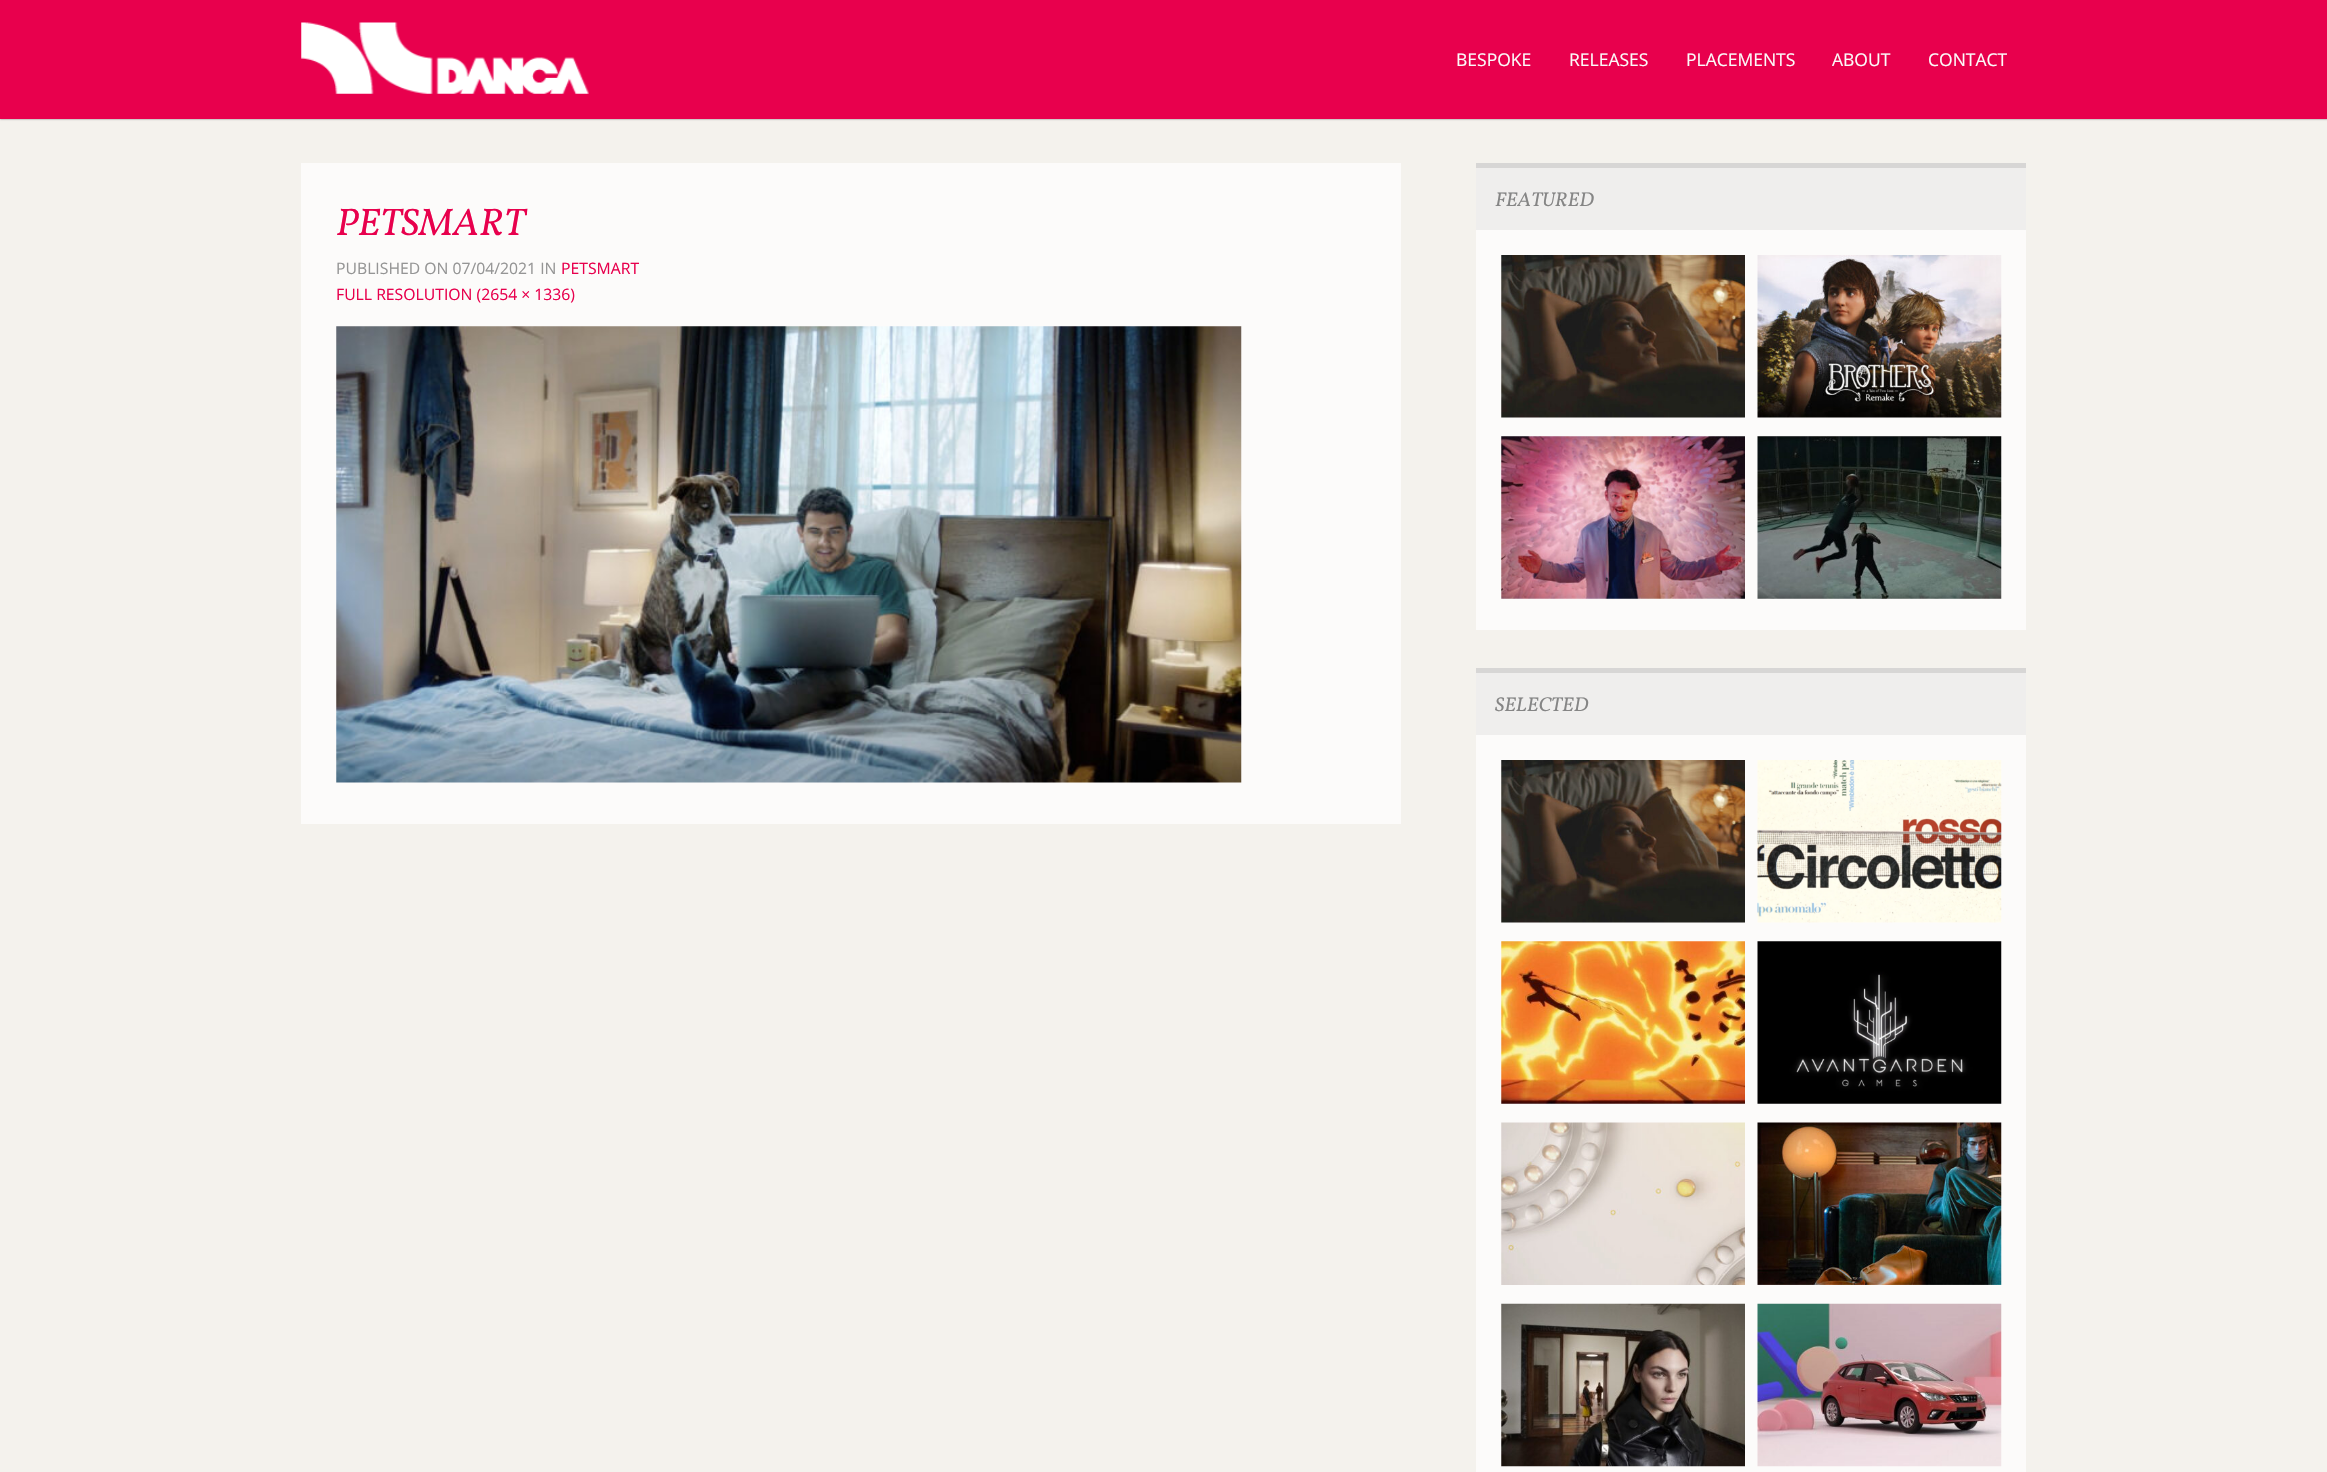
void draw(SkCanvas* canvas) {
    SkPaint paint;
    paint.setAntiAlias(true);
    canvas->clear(0xFFF4F2ED);
    paint.setColor(0x80000000);
    paint.setMaskFilter(SkMaskFilter::MakeBlur(kNormal_SkBlurStyle, 1));
    canvas->drawRect(SkRect::MakeXYWH(0, 0, 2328, 119), paint);
    paint.setMaskFilter(nullptr);
    paint.setColor(0xFFE8004D);
    canvas->drawRect(SkRect::MakeXYWH(0, 0, 2327, 119), paint);
    canvas->drawImageRect(SkImages::DeferredFromEncodedData(SkData::MakeFromFileName("img1.png")), SkRect::MakeXYWH(301, 22, 288, 72), SkSamplingOptions());
    SkFont font1(fontMgr->matchFamilyStyle("Open Sans", SkFontStyle::Normal()), 17.5f);
    font1.setSubpixel(true);
    paint.setColor(0xFFFCFBFA);
    canvas->drawString("BESPOKE", 1456, 66, font1, paint);
    canvas->drawString("RELEASES", 1569, 66, font1, paint);
    canvas->drawString("PLACEMENTS", 1686, 66, font1, paint);
    canvas->drawString("ABOUT", 1832, 66, font1, paint);
    canvas->drawString("CONTACT", 1928, 66, font1, paint);
    canvas->drawRect(SkRect::MakeXYWH(301, 163, 1100, 661), paint);
    SkFont font2(fontMgr->matchFamilyStyle("Vollkorn", SkFontStyle::Italic()), 38.5f);
    font2.setSubpixel(true);
    paint.setColor(0xFFE8004D);
    canvas->drawString("PETSMART", 336, 235, font2, paint);
    SkFont font3(fontMgr->matchFamilyStyle("Open Sans", SkFontStyle::Normal()), 15.75f);
    font3.setSubpixel(true);
    paint.setColor(0xFF959595);
    canvas->drawString("PUBLISHED ON 07/04/2021 IN", 336, 274, font3, paint);
    paint.setColor(0xFFE8004D);
    canvas->drawString("PETSMART", 561, 274, font3, paint);
    canvas->drawString("FULL RESOLUTION (2654 × 1336)", 336, 300, font3, paint);
    canvas->drawImageRect(SkImages::DeferredFromEncodedData(SkData::MakeFromFileName("img2.png")), SkRect::MakeXYWH(336, 326, 906, 457), SkSamplingOptions());
    paint.setColor(0xFFFCFBFA);
    canvas->drawRect(SkRect::MakeXYWH(1476, 230, 550, 400), paint);
    paint.setColor(0xFFEFEEED);
    canvas->drawRect(SkRect::MakeXYWH(1476, 168, 550, 62), paint);
    paint.setColor(0xFFD7D6D5);
    canvas->drawRect(SkRect::MakeXYWH(1476, 163, 550, 5), paint);
    SkFont font4(fontMgr->matchFamilyStyle("Vollkorn", SkFontStyle::Italic()), 20);
    font4.setSubpixel(true);
    paint.setColor(0xFF858585);
    canvas->drawString("FEATURED", 1495, 206, font4, paint);
    canvas->drawImageRect(SkImages::DeferredFromEncodedData(SkData::MakeFromFileName("img3.png")), SkRect::MakeXYWH(1501, 255, 244, 163), SkSamplingOptions());
    canvas->drawImageRect(SkImages::DeferredFromEncodedData(SkData::MakeFromFileName("img4.png")), SkRect::MakeXYWH(1757, 255, 245, 163), SkSamplingOptions());
    canvas->drawImageRect(SkImages::DeferredFromEncodedData(SkData::MakeFromFileName("img5.png")), SkRect::MakeXYWH(1501, 436, 244, 163), SkSamplingOptions());
    canvas->drawImageRect(SkImages::DeferredFromEncodedData(SkData::MakeFromFileName("img6.png")), SkRect::MakeXYWH(1757, 436, 245, 163), SkSamplingOptions());
    paint.setColor(0xFFFCFBFA);
    canvas->drawRect(SkRect::MakeXYWH(1476, 735, 550, 737), paint);
    paint.setColor(0xFFEFEEED);
    canvas->drawRect(SkRect::MakeXYWH(1476, 673, 550, 62), paint);
    paint.setColor(0xFFD7D6D5);
    canvas->drawRect(SkRect::MakeXYWH(1476, 668, 550, 5), paint);
    paint.setColor(0xFF858585);
    canvas->drawString("SELECTED", 1495, 711, font4, paint);
    canvas->drawImageRect(SkImages::DeferredFromEncodedData(SkData::MakeFromFileName("img7.png")), SkRect::MakeXYWH(1501, 760, 244, 163), SkSamplingOptions());
    canvas->drawImageRect(SkImages::DeferredFromEncodedData(SkData::MakeFromFileName("img8.png")), SkRect::MakeXYWH(1757, 760, 245, 163), SkSamplingOptions());
    canvas->drawImageRect(SkImages::DeferredFromEncodedData(SkData::MakeFromFileName("img9.png")), SkRect::MakeXYWH(1501, 941, 244, 163), SkSamplingOptions());
    canvas->drawImageRect(SkImages::DeferredFromEncodedData(SkData::MakeFromFileName("img10.png")), SkRect::MakeXYWH(1757, 941, 245, 163), SkSamplingOptions());
    canvas->drawImageRect(SkImages::DeferredFromEncodedData(SkData::MakeFromFileName("img11.png")), SkRect::MakeXYWH(1501, 1122, 244, 163), SkSamplingOptions());
    canvas->drawImageRect(SkImages::DeferredFromEncodedData(SkData::MakeFromFileName("img12.png")), SkRect::MakeXYWH(1757, 1122, 245, 163), SkSamplingOptions());
    canvas->drawImageRect(SkImages::DeferredFromEncodedData(SkData::MakeFromFileName("img13.png")), SkRect::MakeXYWH(1501, 1303, 244, 164), SkSamplingOptions());
    canvas->drawImageRect(SkImages::DeferredFromEncodedData(SkData::MakeFromFileName("img14.png")), SkRect::MakeXYWH(1757, 1303, 245, 164), SkSamplingOptions());
}
